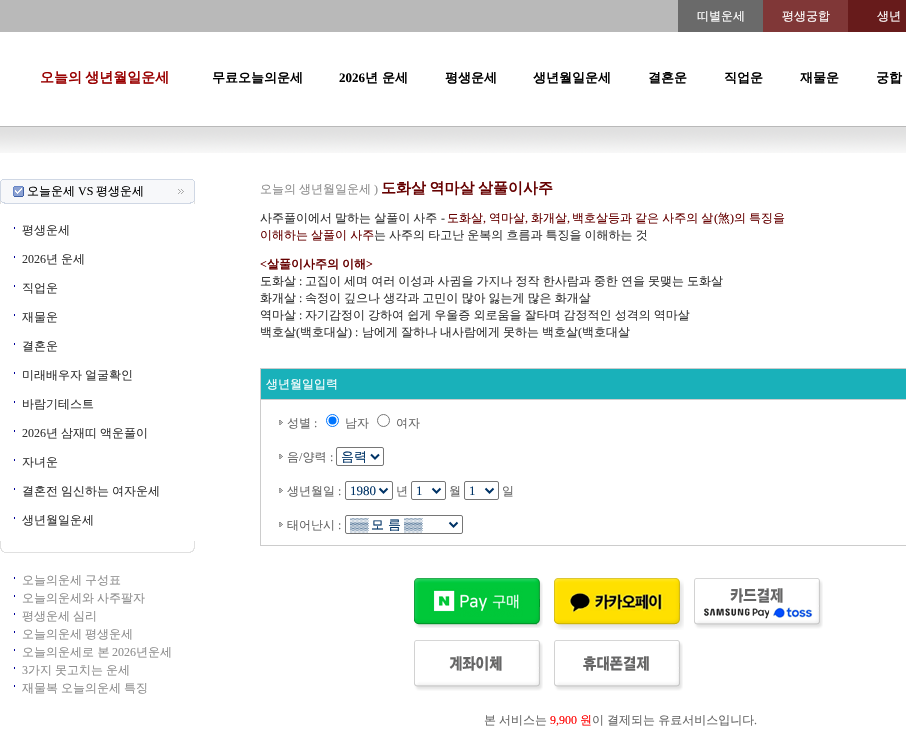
void draw(SkCanvas* canvas) {
    SkPaint paint;
    paint.setAntiAlias(true);
    auto spacedText = [&](const char* s, float x, float y, const SkFont& font, const SkPaint& ink, float letter, float word) {
        std::vector<SkGlyphID> glyphs(font.countText(s, strlen(s), SkTextEncoding::kUTF8));
        std::vector<float> xs(glyphs.size());
        font.textToGlyphs(s, strlen(s), SkTextEncoding::kUTF8, glyphs);
        font.getXPos(glyphs, xs, x);
        float extra = 0;
        for (size_t i = 0; i < glyphs.size(); i++) {
            xs[i] += extra;
            extra += letter + word * (glyphs[i] == font.unicharToGlyph(' '));
        }
        canvas->drawTextBlob(SkTextBlob::MakeFromPosHGlyphs(glyphs, xs, y, font), 0, 0, ink);
    };
    canvas->clear(0xFFFFFFFF);
    canvas->drawImageRect(SkImages::DeferredFromEncodedData(SkData::MakeFromFileName("img1.png")), SkRect::MakeXYWH(0, 0, 906, 153), SkSamplingOptions());
    paint.setColor(0xFF6A6A6A);
    canvas->drawRect(SkRect::MakeXYWH(678, 0, 85, 32), paint);
    SkFont font1(fontMgr->matchFamilyStyle("WenQuanYi Zen Hei", SkFontStyle(500, SkFontStyle::kNormal_Width, SkFontStyle::kUpright_Slant)), 12);
    font1.setSubpixel(true);
    paint.setColor(0xFFFFFFFF);
    canvas->drawString("띠별운세", 697, 20, font1, paint);
    paint.setColor(0xFF803737);
    canvas->drawRect(SkRect::MakeXYWH(763, 0, 85, 32), paint);
    paint.setColor(0xFFFFFFFF);
    canvas->drawString("평생궁합", 782, 20, font1, paint);
    paint.setColor(0xFF671B1B);
    canvas->drawRect(SkRect::MakeXYWH(848, 0, 58, 32), paint);
    paint.setColor(0xFFFFFFFF);
    canvas->drawString("생년", 877, 20, font1, paint);
    SkFont font2(fontMgr->matchFamilyStyle("WenQuanYi Zen Hei", SkFontStyle::Bold()), 14);
    font2.setSubpixel(true);
    paint.setColor(0xFF990000);
    spacedText("오늘의 생년월일운세", 40, 82, font2, paint, 0, -1);
    SkFont font3(fontMgr->matchFamilyStyle("WenQuanYi Zen Hei", SkFontStyle::Bold()), 13);
    font3.setSubpixel(true);
    paint.setColor(0xFF000000);
    canvas->drawString("무료오늘의운세", 212, 82, font3, paint);
    SkFont font4(fontMgr->matchFamilyStyle("Liberation Serif", SkFontStyle::Bold()), 13);
    font4.setSubpixel(true);
    canvas->drawString("2026", 339, 82, font4, paint);
    canvas->drawString("년", 365, 82, font3, paint);
    canvas->drawString("운세", 382, 82, font3, paint);
    canvas->drawString("평생운세", 445, 82, font3, paint);
    canvas->drawString("생년월일운세", 533, 82, font3, paint);
    canvas->drawString("결혼운", 648, 82, font3, paint);
    canvas->drawString("직업운", 724, 82, font3, paint);
    canvas->drawString("재물운", 800, 82, font3, paint);
    canvas->drawString("궁합", 876, 82, font3, paint);
    canvas->drawImageRect(SkImages::DeferredFromEncodedData(SkData::MakeFromFileName("img2.png")), SkRect::MakeXYWH(0, 179, 195, 25), SkSamplingOptions());
    canvas->drawString("오늘운세", 27, 195, font1, paint);
    SkFont font5(fontMgr->matchFamilyStyle("Liberation Serif", SkFontStyle::Normal()), 12);
    font5.setSubpixel(true);
    canvas->drawString("VS", 78, 195, font5, paint);
    canvas->drawString("평생운세", 96, 195, font1, paint);
    paint.setColor(0xFF000099);
    canvas->drawRect(SkRect::MakeXYWH(14, 227, 1, 2), paint);
    paint.setColor(0xFF333333);
    canvas->drawString("평생운세", 22, 234, font1, paint);
    paint.setColor(0xFF000099);
    canvas->drawRect(SkRect::MakeXYWH(14, 256, 1, 2), paint);
    paint.setColor(0xFF333333);
    canvas->drawString("2026", 22, 263, font5, paint);
    canvas->drawString("년", 46, 263, font1, paint);
    canvas->drawString("운세", 61, 263, font1, paint);
    paint.setColor(0xFF000099);
    canvas->drawRect(SkRect::MakeXYWH(14, 285, 1, 2), paint);
    paint.setColor(0xFF333333);
    canvas->drawString("직업운", 22, 292, font1, paint);
    paint.setColor(0xFF000099);
    canvas->drawRect(SkRect::MakeXYWH(14, 314, 1, 2), paint);
    paint.setColor(0xFF333333);
    canvas->drawString("재물운", 22, 321, font1, paint);
    paint.setColor(0xFF000099);
    canvas->drawRect(SkRect::MakeXYWH(14, 343, 1, 2), paint);
    paint.setColor(0xFF333333);
    canvas->drawString("결혼운", 22, 350, font1, paint);
    paint.setColor(0xFF000099);
    canvas->drawRect(SkRect::MakeXYWH(14, 372, 1, 2), paint);
    paint.setColor(0xFF333333);
    canvas->drawString("미래배우자", 22, 379, font1, paint);
    canvas->drawString("얼굴확인", 85, 379, font1, paint);
    paint.setColor(0xFF000099);
    canvas->drawRect(SkRect::MakeXYWH(14, 401, 1, 2), paint);
    paint.setColor(0xFF333333);
    canvas->drawString("바람기테스트", 22, 408, font1, paint);
    paint.setColor(0xFF000099);
    canvas->drawRect(SkRect::MakeXYWH(14, 430, 1, 2), paint);
    paint.setColor(0xFF333333);
    canvas->drawString("2026", 22, 437, font5, paint);
    canvas->drawString("년", 46, 437, font1, paint);
    spacedText("삼재띠 액운풀이", 61, 437, font1, paint, 0, -0.5f);
    paint.setColor(0xFF000099);
    canvas->drawRect(SkRect::MakeXYWH(14, 459, 1, 2), paint);
    paint.setColor(0xFF333333);
    canvas->drawString("자녀운", 22, 466, font1, paint);
    paint.setColor(0xFF000099);
    canvas->drawRect(SkRect::MakeXYWH(14, 488, 1, 2), paint);
    paint.setColor(0xFF333333);
    canvas->drawString("결혼전", 22, 495, font1, paint);
    spacedText("임신하는 여자운세", 61, 495, font1, paint, 0, -0.5f);
    paint.setColor(0xFF000099);
    canvas->drawRect(SkRect::MakeXYWH(14, 517, 1, 2), paint);
    paint.setColor(0xFF333333);
    canvas->drawString("생년월일운세", 22, 524, font1, paint);
    canvas->drawImageRect(SkImages::DeferredFromEncodedData(SkData::MakeFromFileName("img3.png")), SkRect::MakeXYWH(0, 541, 195, 12), SkSamplingOptions());
    paint.setColor(0xFF000099);
    canvas->drawRect(SkRect::MakeXYWH(14, 577, 1, 2), paint);
    paint.setColor(0xFF8E8E8E);
    canvas->drawString("오늘의운세", 22, 584, font1, paint);
    canvas->drawString("구성표", 85, 584, font1, paint);
    paint.setColor(0xFF000099);
    canvas->drawRect(SkRect::MakeXYWH(14, 595, 1, 2), paint);
    paint.setColor(0xFF8E8E8E);
    spacedText("오늘의운세와 사주팔자", 22, 602, font1, paint, 0, -0.5f);
    paint.setColor(0xFF000099);
    canvas->drawRect(SkRect::MakeXYWH(14, 613, 1, 2), paint);
    paint.setColor(0xFF8E8E8E);
    canvas->drawString("평생운세", 22, 620, font1, paint);
    canvas->drawString("심리", 73, 620, font1, paint);
    paint.setColor(0xFF000099);
    canvas->drawRect(SkRect::MakeXYWH(14, 631, 1, 2), paint);
    paint.setColor(0xFF8E8E8E);
    canvas->drawString("오늘의운세", 22, 638, font1, paint);
    canvas->drawString("평생운세", 85, 638, font1, paint);
    paint.setColor(0xFF000099);
    canvas->drawRect(SkRect::MakeXYWH(14, 649, 1, 2), paint);
    paint.setColor(0xFF8E8E8E);
    canvas->drawString("오늘의운세로 본", 22, 656, font1, paint);
    canvas->drawString("2026", 112, 656, font5, paint);
    canvas->drawString("년운세", 136, 656, font1, paint);
    paint.setColor(0xFF000099);
    canvas->drawRect(SkRect::MakeXYWH(14, 667, 1, 2), paint);
    paint.setColor(0xFF8E8E8E);
    canvas->drawString("3", 22, 674, font5, paint);
    canvas->drawString("가지", 28, 674, font1, paint);
    spacedText("못고치는 운세", 55, 674, font1, paint, 0, -0.5f);
    paint.setColor(0xFF000099);
    canvas->drawRect(SkRect::MakeXYWH(14, 685, 1, 2), paint);
    paint.setColor(0xFF8E8E8E);
    canvas->drawString("재물복", 22, 692, font1, paint);
    spacedText("오늘의운세 특징", 61, 692, font1, paint, 0, -0.5f);
    spacedText("오늘의 생년월일운세", 260, 193, font1, paint, 0, -0.5f);
    canvas->drawString(")", 374, 193, font5, paint);
    SkFont font6(fontMgr->matchFamilyStyle("WenQuanYi Zen Hei", SkFontStyle::Bold()), 15);
    font6.setSubpixel(true);
    paint.setColor(0xFF660000);
    spacedText("도화살 역마살 살풀이사주", 381, 193, font6, paint, 0, -1);
    paint.setColor(0xFF333333);
    spacedText("사주풀이에서 말하는 살풀이 사주", 260, 222, font1, paint, 0, -0.5f);
    canvas->drawString("-", 441, 222, font5, paint);
    paint.setColor(0xFF660000);
    canvas->drawString("도화살", 447, 222, font1, paint);
    canvas->drawString("역마살", 489, 222, font1, paint);
    canvas->drawString("화개살", 531, 222, font1, paint);
    spacedText("백호살등과 같은 사주의 살", 572, 222, font1, paint, 0, -0.5f);
    canvas->drawString("(", 714, 222, font5, paint);
    canvas->drawString("煞", 718, 222, font1, paint);
    canvas->drawString(")", 730, 222, font5, paint);
    spacedText("의 특징을", 734, 222, font1, paint, 0, -0.5f);
    canvas->drawString(",", 483, 222, font5, paint);
    canvas->drawString(",", 525, 222, font5, paint);
    canvas->drawString(",", 567, 222, font5, paint);
    spacedText("이해하는 살풀이 사주", 260, 239, font1, paint, 0, -0.5f);
    paint.setColor(0xFF333333);
    spacedText("는 사주의 타고난 운복의 흐름과 특징을 이해하는 것", 374, 239, font1, paint, 0, -0.5f);
    SkFont font7(fontMgr->matchFamilyStyle("Liberation Serif", SkFontStyle::Bold()), 12);
    font7.setSubpixel(true);
    paint.setColor(0xFF660000);
    canvas->drawString("<", 260, 268, font7, paint);
    SkFont font8(fontMgr->matchFamilyStyle("WenQuanYi Zen Hei", SkFontStyle::Bold()), 12);
    font8.setSubpixel(true);
    spacedText("살풀이사주의 이해", 267, 268, font8, paint, 0, -0.5f);
    canvas->drawString(">", 366, 268, font7, paint);
    paint.setColor(0xFF333333);
    canvas->drawString("도화살", 260, 285, font1, paint);
    canvas->drawString(":", 299, 285, font5, paint);
    spacedText("고집이 세며 여러 이성과 사귐을 가지나 정작 한사람과 중한 연을 못맺는 도화살", 305, 285, font1, paint, 0, -0.5f);
    canvas->drawString("화개살", 260, 302, font1, paint);
    canvas->drawString(":", 299, 302, font5, paint);
    spacedText("속정이 깊으나 생각과 고민이 많아 잃는게 많은 화개살", 305, 302, font1, paint, 0, -0.5f);
    canvas->drawString("역마살", 260, 319, font1, paint);
    canvas->drawString(":", 299, 319, font5, paint);
    spacedText("자기감정이 강하여 쉽게 우울증 외로움을 잘타며 감정적인 성격의 역마살", 305, 319, font1, paint, 0, -0.5f);
    canvas->drawString("백호살", 260, 336, font1, paint);
    canvas->drawString("(", 296, 336, font5, paint);
    canvas->drawString("백호대살", 300, 336, font1, paint);
    canvas->drawString(") :", 348, 336, font5, paint);
    canvas->drawString("남에게", 362, 336, font1, paint);
    canvas->drawString("잘하나", 401, 336, font1, paint);
    canvas->drawString("내사람에게", 440, 336, font1, paint);
    canvas->drawString("못하는", 503, 336, font1, paint);
    canvas->drawString("백호살", 542, 336, font1, paint);
    canvas->drawString("(", 578, 336, font5, paint);
    canvas->drawString("백호대살", 582, 336, font1, paint);
    paint.setColor(0xFFCCCCCC);
    canvas->drawRect(SkRect::MakeXYWH(260, 368, 646, 178), paint);
    paint.setColor(0xFF19B1BA);
    canvas->drawRect(SkRect::MakeXYWH(261, 369, 645, 30), paint);
    paint.setColor(0xFFFFFFFF);
    canvas->drawString("생년월일입력", 266, 388, font1, paint);
    canvas->drawRect(SkRect::MakeXYWH(261, 400, 645, 145), paint);
    canvas->drawImageRect(SkImages::DeferredFromEncodedData(SkData::MakeFromFileName("img4.png")), SkRect::MakeXYWH(279, 420, 4, 5), SkSamplingOptions());
    paint.setColor(0xFF666666);
    canvas->drawString("성별", 287, 427, font1, paint);
    canvas->drawString(":", 314, 427, font5, paint);
    paint.setStyle(SkPaint::kStroke_Style);
    paint.setStrokeWidth(1);
    paint.setColor(0xFF0075FF);
    canvas->drawCircle(332.5f, 420.5f, 6, paint);
    paint.setStyle(SkPaint::kFill_Style);
    canvas->drawCircle(332.5f, 420.5f, 4, paint);
    paint.setColor(0xFF666666);
    canvas->drawString("남자", 345, 427, font1, paint);
    paint.setStyle(SkPaint::kStroke_Style);
    paint.setColor(0xFF767676);
    canvas->drawCircle(383.5f, 420.5f, 6, paint);
    paint.setStyle(SkPaint::kFill_Style);
    paint.setColor(0xFF666666);
    canvas->drawString("여자", 396, 427, font1, paint);
    canvas->drawString("음 양력", 287, 461, font1, paint);
    paint.setStyle(SkPaint::kStroke_Style);
    paint.setColor(0xFF767676);
    canvas->drawRoundRect(SkRect::MakeXYWH(336.5f, 447.5f, 47, 18), 1.5f, 1.5f, paint);
    paint.setStrokeWidth(2);
    paint.setColor(0xFF003366);
    canvas->drawPath(SkPathBuilder().moveTo(371, 454.5f).lineTo(375, 458.5f).lineTo(379, 454.5f).detach(), paint);
    SkFont font9(fontMgr->matchFamilyStyle("WenQuanYi Zen Hei", SkFontStyle(500, SkFontStyle::kNormal_Width, SkFontStyle::kUpright_Slant)), 13);
    font9.setSubpixel(true);
    paint.setStyle(SkPaint::kFill_Style);
    canvas->drawString("음력", 341, 461, font9, paint);
    canvas->drawImageRect(SkImages::DeferredFromEncodedData(SkData::MakeFromFileName("img4.png")), SkRect::MakeXYWH(279, 454, 4, 5), SkSamplingOptions());
    paint.setColor(0xFF666666);
    canvas->drawString("/", 299, 461, font5, paint);
    canvas->drawString(":", 330, 461, font5, paint);
    canvas->drawImageRect(SkImages::DeferredFromEncodedData(SkData::MakeFromFileName("img4.png")), SkRect::MakeXYWH(279, 488, 4, 5), SkSamplingOptions());
    canvas->drawString("생년월일", 287, 495, font1, paint);
    canvas->drawString(":", 338, 495, font5, paint);
    paint.setStyle(SkPaint::kStroke_Style);
    paint.setStrokeWidth(1);
    paint.setColor(0xFF767676);
    canvas->drawRoundRect(SkRect::MakeXYWH(345.5f, 481.5f, 47, 18), 1.5f, 1.5f, paint);
    paint.setStrokeWidth(2);
    paint.setColor(0xFF003366);
    canvas->drawPath(SkPathBuilder().moveTo(379.5f, 488.5f).lineTo(383.5f, 492.5f).lineTo(387.5f, 488.5f).detach(), paint);
    SkFont font10(fontMgr->matchFamilyStyle("Liberation Serif", SkFontStyle::Normal()), 13);
    font10.setSubpixel(true);
    paint.setStyle(SkPaint::kFill_Style);
    canvas->drawString("1980", 350, 495, font10, paint);
    paint.setColor(0xFF666666);
    canvas->drawString("년", 396, 495, font1, paint);
    paint.setStyle(SkPaint::kStroke_Style);
    paint.setStrokeWidth(1);
    paint.setColor(0xFF767676);
    canvas->drawRoundRect(SkRect::MakeXYWH(411.5f, 481.5f, 34, 18), 1.5f, 1.5f, paint);
    paint.setStrokeWidth(2);
    paint.setColor(0xFF003366);
    canvas->drawPath(SkPathBuilder().moveTo(432.5f, 488.5f).lineTo(436.5f, 492.5f).lineTo(440.5f, 488.5f).detach(), paint);
    paint.setStyle(SkPaint::kFill_Style);
    canvas->drawString("1", 416, 495, font10, paint);
    paint.setColor(0xFF666666);
    canvas->drawString("월", 449, 495, font1, paint);
    paint.setStyle(SkPaint::kStroke_Style);
    paint.setStrokeWidth(1);
    paint.setColor(0xFF767676);
    canvas->drawRoundRect(SkRect::MakeXYWH(464.5f, 481.5f, 34, 18), 1.5f, 1.5f, paint);
    paint.setStrokeWidth(2);
    paint.setColor(0xFF003366);
    canvas->drawPath(SkPathBuilder().moveTo(485.5f, 488.5f).lineTo(489.5f, 492.5f).lineTo(493.5f, 488.5f).detach(), paint);
    paint.setStyle(SkPaint::kFill_Style);
    canvas->drawString("1", 469, 495, font10, paint);
    paint.setColor(0xFF666666);
    canvas->drawString("일", 502, 495, font1, paint);
    canvas->drawImageRect(SkImages::DeferredFromEncodedData(SkData::MakeFromFileName("img4.png")), SkRect::MakeXYWH(279, 522, 4, 5), SkSamplingOptions());
    canvas->drawString("태어난시", 287, 529, font1, paint);
    canvas->drawString(":", 338, 529, font5, paint);
    paint.setStyle(SkPaint::kStroke_Style);
    paint.setStrokeWidth(1);
    paint.setColor(0xFF767676);
    canvas->drawRoundRect(SkRect::MakeXYWH(345.5f, 515.5f, 117, 18), 1.5f, 1.5f, paint);
    paint.setStrokeWidth(2);
    paint.setColor(0xFF003366);
    canvas->drawPath(SkPathBuilder().moveTo(449.5f, 522.5f).lineTo(453.5f, 526.5f).lineTo(457.5f, 522.5f).detach(), paint);
    canvas->save();
    canvas->clipRect(SkRect::MakeXYWH(350, 516, 96, 17));
    paint.setStyle(SkPaint::kFill_Style);
    canvas->drawString("▒▒", 350, 529, font10, paint);
    canvas->restore();
    canvas->drawString("모 름", 371, 529, font9, paint);
    canvas->drawString("▒▒", 404, 529, font10, paint);
    canvas->drawImageRect(SkImages::DeferredFromEncodedData(SkData::MakeFromFileName("img5.png")), SkRect::MakeXYWH(414, 578, 129, 50), SkSamplingOptions());
    canvas->drawImageRect(SkImages::DeferredFromEncodedData(SkData::MakeFromFileName("img6.png")), SkRect::MakeXYWH(554, 578, 130, 52), SkSamplingOptions());
    canvas->drawImageRect(SkImages::DeferredFromEncodedData(SkData::MakeFromFileName("img7.png")), SkRect::MakeXYWH(694, 578, 129, 51), SkSamplingOptions());
    canvas->drawImageRect(SkImages::DeferredFromEncodedData(SkData::MakeFromFileName("img8.png")), SkRect::MakeXYWH(414, 640, 129, 51), SkSamplingOptions());
    canvas->drawImageRect(SkImages::DeferredFromEncodedData(SkData::MakeFromFileName("img9.png")), SkRect::MakeXYWH(554, 640, 129, 51), SkSamplingOptions());
    paint.setColor(0xFF666666);
    spacedText("본 서비스는", 484, 724, font1, paint, 0, -0.5f);
    paint.setColor(0xFFFF0000);
    canvas->drawString("9,900", 550, 724, font5, paint);
    canvas->drawString("원", 580, 724, font1, paint);
    paint.setColor(0xFF666666);
    spacedText("이 결제되는 유료서비스입니다", 592, 724, font1, paint, 0, -0.5f);
    canvas->drawString(".", 754, 724, font5, paint);
}
